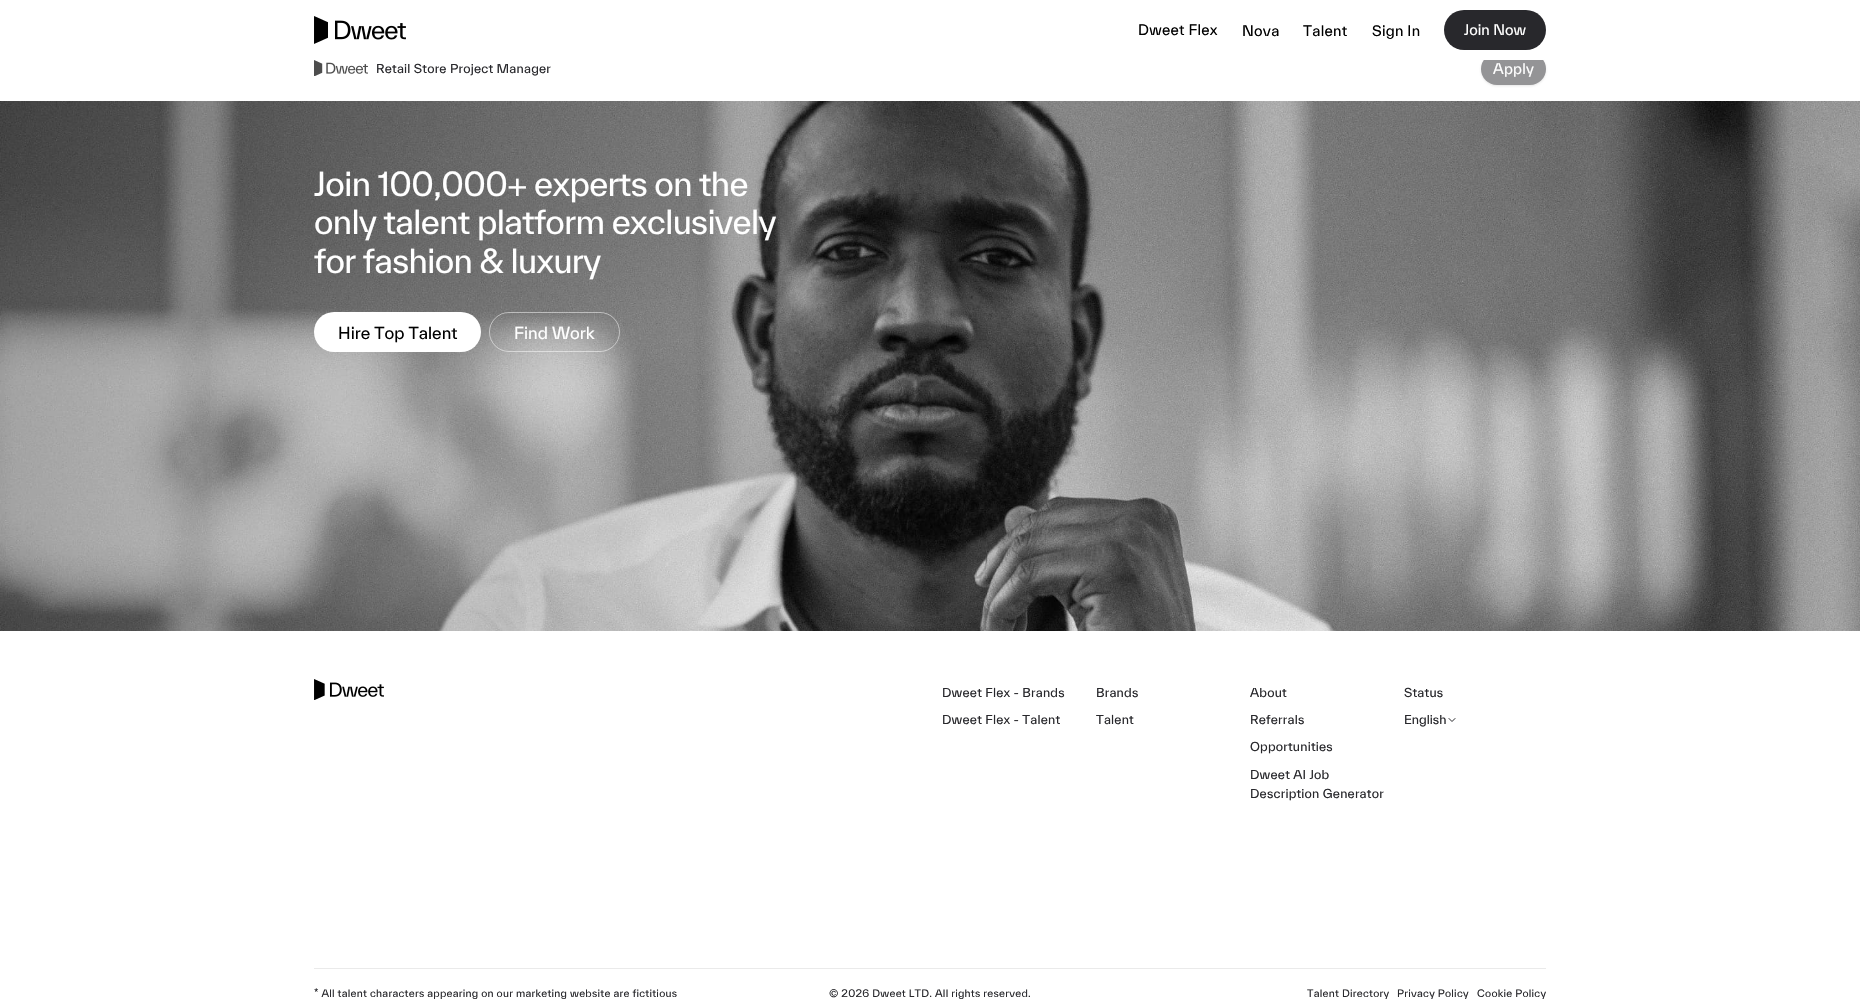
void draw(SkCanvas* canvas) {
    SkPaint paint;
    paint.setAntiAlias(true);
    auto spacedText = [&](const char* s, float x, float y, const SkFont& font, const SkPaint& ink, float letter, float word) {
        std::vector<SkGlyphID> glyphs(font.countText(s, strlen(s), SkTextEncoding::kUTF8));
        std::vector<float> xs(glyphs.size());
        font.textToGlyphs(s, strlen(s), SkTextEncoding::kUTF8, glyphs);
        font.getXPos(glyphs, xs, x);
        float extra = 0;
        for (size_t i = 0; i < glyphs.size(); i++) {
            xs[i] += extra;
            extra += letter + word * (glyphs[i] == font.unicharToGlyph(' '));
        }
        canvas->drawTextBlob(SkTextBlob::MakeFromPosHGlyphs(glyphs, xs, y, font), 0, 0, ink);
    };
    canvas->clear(0xFFFFFFFF);
    paint.setColor(0x1A808080);
    paint.setMaskFilter(SkMaskFilter::MakeBlur(kNormal_SkBlurStyle, 1));
    canvas->drawRoundRect(SkRect::MakeXYWH(1481, 54, 65, 32), 16, 16, paint);
    paint.setMaskFilter(nullptr);
    paint.setMaskFilter(SkMaskFilter::MakeBlur(kNormal_SkBlurStyle, 1.5f));
    canvas->drawRoundRect(SkRect::MakeXYWH(1481, 54, 65, 32), 16, 16, paint);
    paint.setMaskFilter(nullptr);
    paint.setColor(0xFF949496);
    canvas->drawRoundRect(SkRect::MakeXYWH(1481, 53, 65, 32), 16, 16, paint);
    paint.setColor(0xFFFFFFFF);
    canvas->drawRect(SkRect::MakeXYWH(1483, 52, 61, 8), paint);
    canvas->drawImageRect(SkImages::DeferredFromEncodedData(SkData::MakeFromFileName("img1.png")), SkRect::MakeXYWH(314, 16, 92, 28), SkSamplingOptions());
    SkFont font1(fontMgr->matchFamilyStyle("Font", SkFontStyle::Normal()), 14);
    font1.setSubpixel(true);
    paint.setColor(0xFF000000);
    spacedText("Dweet Flex", 1138, 35, font1, paint, 0.25f, 0);
    spacedText("Nova", 1242, 36, font1, paint, 0.25f, 0);
    spacedText("Talent", 1303, 36, font1, paint, 0.25f, 0);
    spacedText("Sign In", 1372, 36, font1, paint, 0.25f, 0);
    paint.setColor(0xFF28282C);
    canvas->drawRoundRect(SkRect::MakeXYWH(1444, 10, 102, 40), 20, 20, paint);
    paint.setColor(0xFFFFFFFF);
    canvas->drawString("Join Now", 1464, 35, font1, paint);
    canvas->drawImageRect(SkImages::DeferredFromEncodedData(SkData::MakeFromFileName("img2.png")), SkRect::MakeXYWH(314, 60, 54, 16), SkSamplingOptions());
    SkFont font2(fontMgr->matchFamilyStyle("Font", SkFontStyle::Normal()), 12);
    font2.setSubpixel(true);
    paint.setColor(0xFF28282C);
    spacedText("Retail Store Project Manager", 376, 73, font2, paint, 0.2f, 0);
    paint.setColor(0xFFFFFFFF);
    spacedText("Apply", 1493, 74, font1, paint, 0.25f, 0);
    canvas->drawImageRect(SkImages::DeferredFromEncodedData(SkData::MakeFromFileName("img3.png")), SkRect::MakeXYWH(0, 101, 1860, 530), SkSamplingOptions());
    SkFont font3(fontMgr->matchFamilyStyle("Font", SkFontStyle::Normal()), 32);
    font3.setSubpixel(true);
    spacedText("Join 100,000+ experts on the", 314, 196, font3, paint, -0.65f, 0);
    spacedText("only talent platform exclusively", 314, 234, font3, paint, -0.65f, 0);
    spacedText("for fashion & luxury", 314, 273, font3, paint, -0.65f, 0);
    canvas->drawRoundRect(SkRect::MakeXYWH(314, 312, 167, 40), 20, 20, paint);
    SkFont font4(fontMgr->matchFamilyStyle("Font", SkFontStyle::Normal()), 16);
    font4.setSubpixel(true);
    paint.setColor(0xFF000000);
    canvas->drawString("Hire Top Talent", 338, 339, font4, paint);
    paint.setStyle(SkPaint::kStroke_Style);
    paint.setStrokeWidth(1);
    paint.setColor(0x80FFFFFF);
    canvas->drawRoundRect(SkRect::MakeXYWH(489.5f, 312.5f, 130, 39), 19.5f, 19.5f, paint);
    paint.setStyle(SkPaint::kFill_Style);
    paint.setColor(0xFFFFFFFF);
    canvas->drawString("Find Work", 514, 339, font4, paint);
    canvas->drawImageRect(SkImages::DeferredFromEncodedData(SkData::MakeFromFileName("img4.png")), SkRect::MakeXYWH(314, 679, 70, 21), SkSamplingOptions());
    paint.setColor(0xFF28282C);
    spacedText("Dweet Flex - Brands", 942, 697, font2, paint, 0.2f, 0);
    spacedText("Dweet Flex - Talent", 942, 724, font2, paint, 0.2f, 0);
    spacedText("Brands", 1096, 697, font2, paint, 0.2f, 0);
    spacedText("Talent", 1096, 724, font2, paint, 0.2f, 0);
    spacedText("About", 1250, 697, font2, paint, 0.2f, 0);
    spacedText("Referrals", 1250, 724, font2, paint, 0.2f, 0);
    spacedText("Opportunities", 1250, 751, font2, paint, 0.2f, 0);
    spacedText("Dweet AI Job", 1250, 779, font2, paint, 0.2f, 0);
    spacedText("Description Generator", 1250, 798, font2, paint, 0.2f, 0);
    spacedText("Status", 1404, 697, font2, paint, 0.2f, 0);
    canvas->drawString("English", 1404, 724, font2, paint);
    paint.setStyle(SkPaint::kStroke_Style);
    paint.setStrokeCap(SkPaint::kRound_Cap);
    paint.setStrokeJoin(SkPaint::kRound_Join);
    canvas->drawPath(SkPathBuilder().moveTo(1449, 718.5f).lineTo(1452, 721.5f).lineTo(1455, 718.5f).detach(), paint);
    paint.setStyle(SkPaint::kFill_Style);
    paint.setColor(0xFFEAEAEA);
    canvas->drawRect(SkRect::MakeXYWH(314, 968, 1232, 1), paint);
    SkFont font5(fontMgr->matchFamilyStyle("Font", SkFontStyle::Normal()), 10);
    font5.setSubpixel(true);
    paint.setColor(0xFF28282C);
    spacedText("* All talent characters appearing on our marketing website are fictitious", 314, 997, font5, paint, 0.25f, 0);
    spacedText("© 2026 Dweet LTD. All rights reserved.", 829, 997, font5, paint, 0.25f, 0);
    spacedText("Talent Directory", 1307, 997, font5, paint, 0.25f, 0);
    spacedText("Privacy Policy", 1397, 997, font5, paint, 0.25f, 0);
    spacedText("Cookie Policy", 1477, 997, font5, paint, 0.25f, 0);
}
